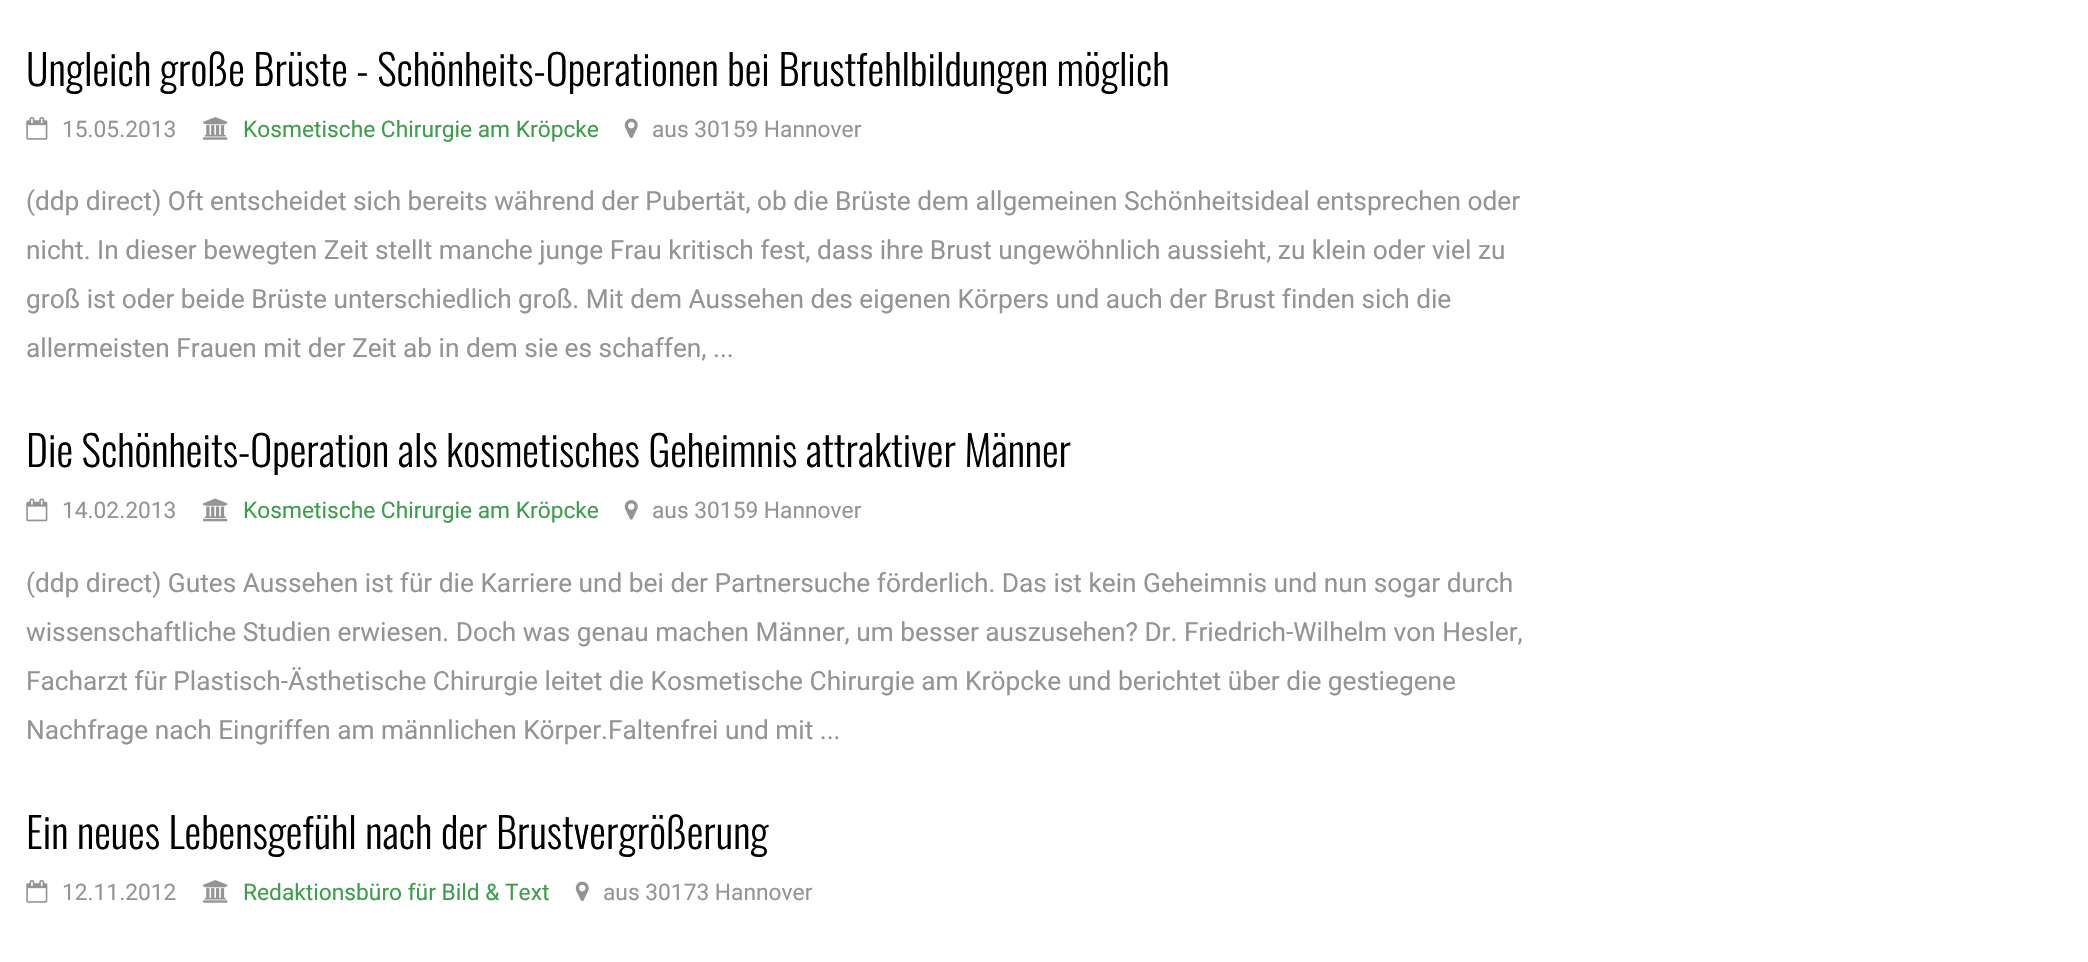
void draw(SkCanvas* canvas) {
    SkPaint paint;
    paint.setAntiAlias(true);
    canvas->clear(0xFFFFFFFF);
    SkFont font1(fontMgr->matchFamilyStyle("Oswald", SkFontStyle(300, SkFontStyle::kNormal_Width, SkFontStyle::kUpright_Slant)), 42);
    font1.setSubpixel(true);
    paint.setColor(0xFF000000);
    canvas->drawString("Ungleich große Brüste - Schönheits-Operationen bei Brustfehlbildungen möglich", 26, 86, font1, paint);
    canvas->drawImageRect(SkImages::DeferredFromEncodedData(SkData::MakeFromFileName("img1.png")), SkRect::MakeXYWH(26, 117, 22, 23), SkSamplingOptions());
    SkFont font2(fontMgr->matchFamilyStyle("Roboto", SkFontStyle::Normal()), 22.75f);
    font2.setSubpixel(true);
    paint.setColor(0xFF949494);
    canvas->drawString("15.05.2013", 62, 137, font2, paint);
    canvas->drawImageRect(SkImages::DeferredFromEncodedData(SkData::MakeFromFileName("img2.png")), SkRect::MakeXYWH(203, 117, 25, 23), SkSamplingOptions());
    paint.setColor(0xFF3C9D4A);
    canvas->drawString("Kosmetische Chirurgie am Kröpcke", 243, 137, font2, paint);
    canvas->drawImageRect(SkImages::DeferredFromEncodedData(SkData::MakeFromFileName("img3.png")), SkRect::MakeXYWH(624, 118, 14, 21), SkSamplingOptions());
    paint.setColor(0xFF949494);
    canvas->drawString("aus 30159 Hannover", 652, 137, font2, paint);
    SkFont font3(fontMgr->matchFamilyStyle("Roboto", SkFontStyle::Normal()), 26.25f);
    font3.setSubpixel(true);
    canvas->drawString("(ddp direct) Oft entscheidet sich bereits während der Pubertät, ob die Brüste dem allgemeinen Schönheitsideal entsprechen oder", 26, 210, font3, paint);
    canvas->drawString("nicht. In dieser bewegten Zeit stellt manche junge Frau kritisch fest, dass ihre Brust ungewöhnlich aussieht, zu klein oder viel zu", 26, 259, font3, paint);
    canvas->drawString("groß ist oder beide Brüste unterschiedlich groß. Mit dem Aussehen des eigenen Körpers und auch der Brust finden sich die", 26, 308, font3, paint);
    canvas->drawString("allermeisten Frauen mit der Zeit ab in dem sie es schaffen, ...", 26, 357, font3, paint);
    paint.setColor(0xFF000000);
    canvas->drawString("Die Schönheits-Operation als kosmetisches Geheimnis attraktiver Männer", 26, 467, font1, paint);
    canvas->drawImageRect(SkImages::DeferredFromEncodedData(SkData::MakeFromFileName("img4.png")), SkRect::MakeXYWH(26, 498, 22, 24), SkSamplingOptions());
    paint.setColor(0xFF949494);
    canvas->drawString("14.02.2013", 62, 518, font2, paint);
    canvas->drawImageRect(SkImages::DeferredFromEncodedData(SkData::MakeFromFileName("img5.png")), SkRect::MakeXYWH(203, 498, 25, 24), SkSamplingOptions());
    paint.setColor(0xFF3C9D4A);
    canvas->drawString("Kosmetische Chirurgie am Kröpcke", 243, 518, font2, paint);
    canvas->drawImageRect(SkImages::DeferredFromEncodedData(SkData::MakeFromFileName("img6.png")), SkRect::MakeXYWH(624, 500, 14, 20), SkSamplingOptions());
    paint.setColor(0xFF949494);
    canvas->drawString("aus 30159 Hannover", 652, 518, font2, paint);
    canvas->drawString("(ddp direct) Gutes Aussehen ist für die Karriere und bei der Partnersuche förderlich. Das ist kein Geheimnis und nun sogar durch", 26, 592, font3, paint);
    canvas->drawString("wissenschaftliche Studien erwiesen. Doch was genau machen Männer, um besser auszusehen? Dr. Friedrich-Wilhelm von Hesler,", 26, 641, font3, paint);
    canvas->drawString("Facharzt für Plastisch-Ästhetische Chirurgie leitet die Kosmetische Chirurgie am Kröpcke und berichtet über die gestiegene", 26, 690, font3, paint);
    canvas->drawString("Nachfrage nach Eingriffen am männlichen Körper.Faltenfrei und mit ...", 26, 739, font3, paint);
    paint.setColor(0xFF000000);
    canvas->drawString("Ein neues Lebensgefühl nach der Brustvergrößerung", 26, 849, font1, paint);
    canvas->drawImageRect(SkImages::DeferredFromEncodedData(SkData::MakeFromFileName("img1.png")), SkRect::MakeXYWH(26, 880, 22, 23), SkSamplingOptions());
    paint.setColor(0xFF949494);
    canvas->drawString("12.11.2012", 62, 900, font2, paint);
    canvas->drawImageRect(SkImages::DeferredFromEncodedData(SkData::MakeFromFileName("img2.png")), SkRect::MakeXYWH(203, 880, 25, 23), SkSamplingOptions());
    paint.setColor(0xFF3C9D4A);
    canvas->drawString("Redaktionsbüro für Bild & Text", 243, 900, font2, paint);
    canvas->drawImageRect(SkImages::DeferredFromEncodedData(SkData::MakeFromFileName("img3.png")), SkRect::MakeXYWH(575, 881, 14, 21), SkSamplingOptions());
    paint.setColor(0xFF949494);
    canvas->drawString("aus 30173 Hannover", 603, 900, font2, paint);
}
